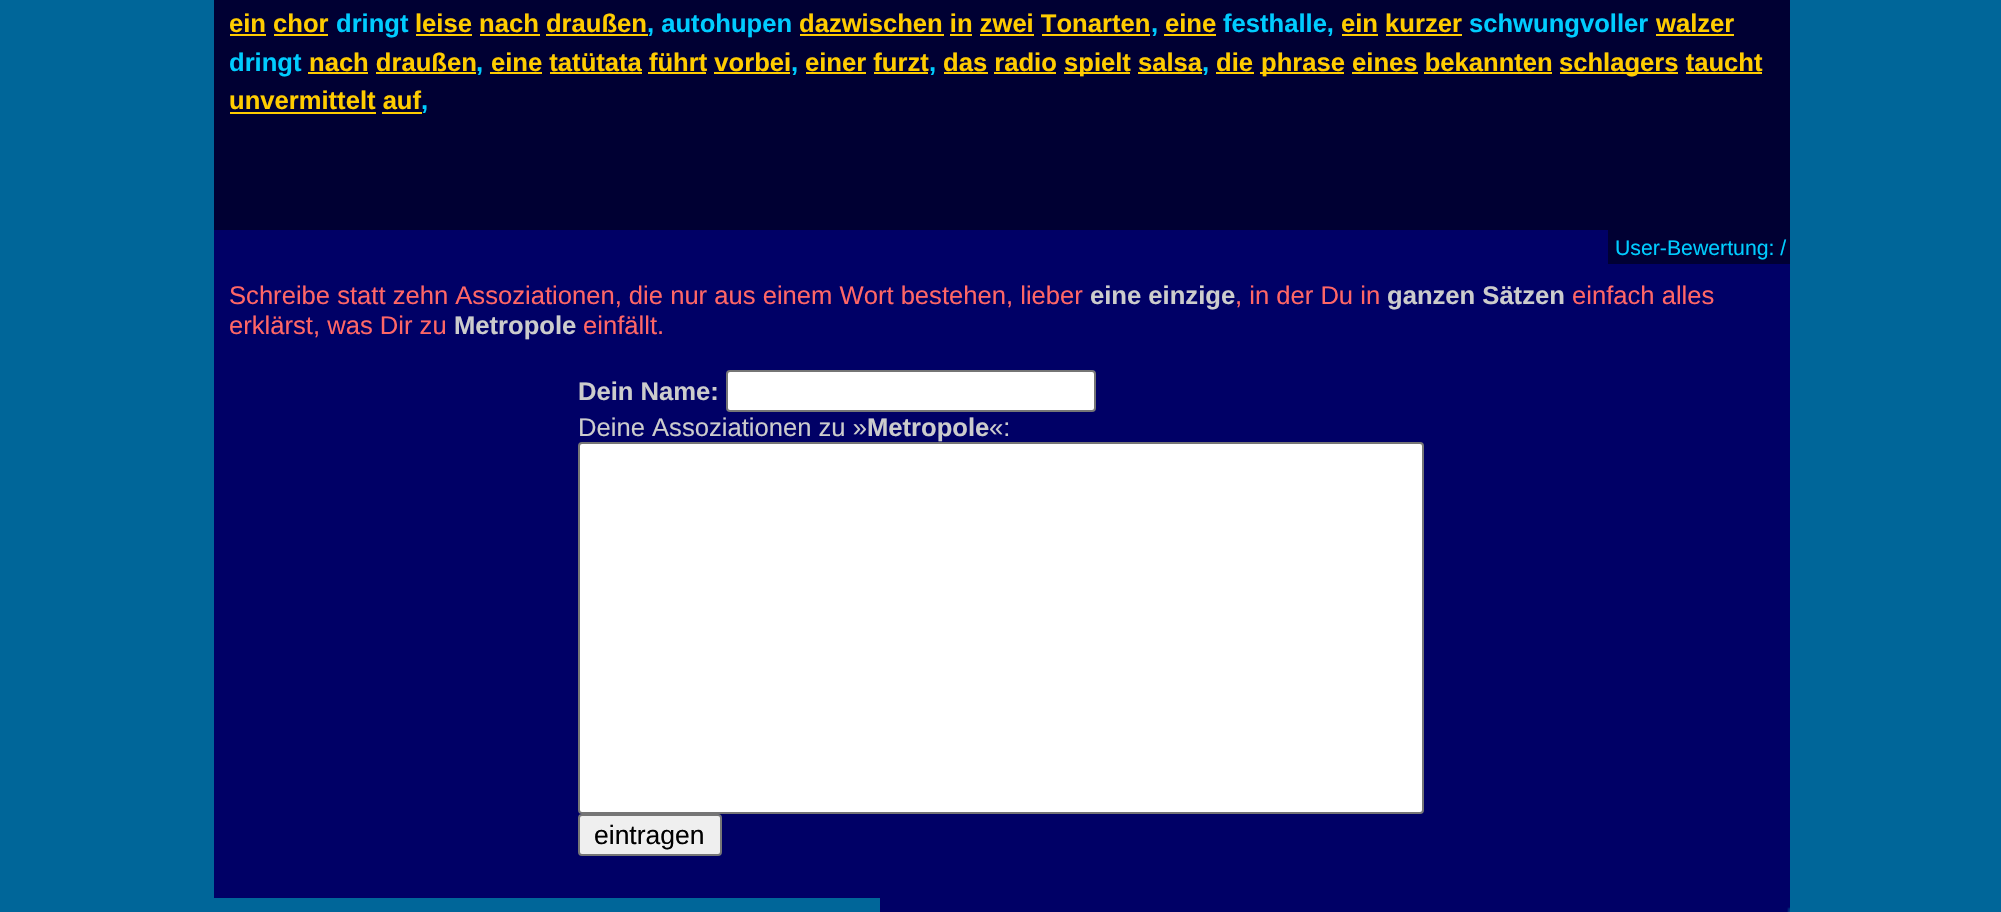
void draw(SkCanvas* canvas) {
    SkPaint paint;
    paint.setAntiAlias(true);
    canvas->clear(0xFF006699);
    paint.setColor(0xFF000033);
    canvas->drawRect(SkRect::MakeXYWH(214, 0, 1576, 230), paint);
    SkFont font1(fontMgr->matchFamilyStyle("Liberation Sans", SkFontStyle::Bold()), 25.6f);
    font1.setSubpixel(true);
    paint.setColor(0xFFFFCC00);
    canvas->drawString("ein chor", 229, 32, font1, paint);
    canvas->drawRect(SkRect::MakeXYWH(230, 34, 36, 2), paint);
    canvas->drawRect(SkRect::MakeXYWH(274, 34, 54, 2), paint);
    paint.setColor(0xFF00CCFF);
    canvas->drawString("dringt", 336, 32, font1, paint);
    paint.setColor(0xFFFFCC00);
    canvas->drawString("leise nach draußen", 415, 32, font1, paint);
    canvas->drawRect(SkRect::MakeXYWH(416, 34, 56, 2), paint);
    canvas->drawRect(SkRect::MakeXYWH(480, 34, 60, 2), paint);
    paint.setColor(0xFF00CCFF);
    canvas->drawString(", autohupen", 647, 32, font1, paint);
    paint.setColor(0xFFFFCC00);
    canvas->drawRect(SkRect::MakeXYWH(546, 34, 102, 2), paint);
    canvas->drawString("dazwischen in zwei Tonarten", 799, 32, font1, paint);
    canvas->drawRect(SkRect::MakeXYWH(800, 34, 144, 2), paint);
    canvas->drawRect(SkRect::MakeXYWH(950, 34, 22, 2), paint);
    canvas->drawRect(SkRect::MakeXYWH(980, 34, 54, 2), paint);
    paint.setColor(0xFF00CCFF);
    canvas->drawString(",", 1151, 32, font1, paint);
    paint.setColor(0xFFFFCC00);
    canvas->drawRect(SkRect::MakeXYWH(1042, 34, 108, 2), paint);
    canvas->drawRect(SkRect::MakeXYWH(1164, 34, 52, 2), paint);
    canvas->drawString("eine", 1165, 32, font1, paint);
    paint.setColor(0xFF00CCFF);
    canvas->drawString("festhalle,", 1223, 32, font1, paint);
    paint.setColor(0xFFFFCC00);
    canvas->drawString("ein kurzer", 1341, 32, font1, paint);
    canvas->drawRect(SkRect::MakeXYWH(1342, 34, 36, 2), paint);
    canvas->drawRect(SkRect::MakeXYWH(1386, 34, 76, 2), paint);
    paint.setColor(0xFF00CCFF);
    canvas->drawString("schwungvoller", 1469, 32, font1, paint);
    paint.setColor(0xFFFFCC00);
    canvas->drawString("walzer", 1656, 32, font1, paint);
    canvas->drawRect(SkRect::MakeXYWH(1656, 34, 78, 2), paint);
    paint.setColor(0xFF00CCFF);
    canvas->drawString("dringt", 229, 71, font1, paint);
    paint.setColor(0xFFFFCC00);
    canvas->drawString("nach draußen", 309, 71, font1, paint);
    canvas->drawRect(SkRect::MakeXYWH(308, 72, 60, 2), paint);
    paint.setColor(0xFF00CCFF);
    canvas->drawString(",", 476, 71, font1, paint);
    paint.setColor(0xFFFFCC00);
    canvas->drawRect(SkRect::MakeXYWH(376, 72, 100, 2), paint);
    canvas->drawRect(SkRect::MakeXYWH(490, 72, 52, 2), paint);
    canvas->drawString("eine tatütata führt vorbei", 491, 71, font1, paint);
    canvas->drawRect(SkRect::MakeXYWH(550, 72, 92, 2), paint);
    canvas->drawRect(SkRect::MakeXYWH(648, 72, 58, 2), paint);
    paint.setColor(0xFF00CCFF);
    canvas->drawString(",", 791, 71, font1, paint);
    paint.setColor(0xFFFFCC00);
    canvas->drawRect(SkRect::MakeXYWH(714, 72, 76, 2), paint);
    canvas->drawRect(SkRect::MakeXYWH(806, 72, 60, 2), paint);
    canvas->drawString("einer furzt", 805, 71, font1, paint);
    paint.setColor(0xFF00CCFF);
    canvas->drawString(",", 929, 71, font1, paint);
    paint.setColor(0xFFFFCC00);
    canvas->drawRect(SkRect::MakeXYWH(874, 72, 54, 2), paint);
    canvas->drawRect(SkRect::MakeXYWH(944, 72, 44, 2), paint);
    canvas->drawString("das radio", 943, 71, font1, paint);
    canvas->drawRect(SkRect::MakeXYWH(994, 72, 62, 2), paint);
    canvas->drawRect(SkRect::MakeXYWH(1064, 72, 66, 2), paint);
    canvas->drawString("spielt salsa", 1064, 71, font1, paint);
    paint.setColor(0xFF00CCFF);
    canvas->drawString(",", 1202, 71, font1, paint);
    paint.setColor(0xFFFFCC00);
    canvas->drawRect(SkRect::MakeXYWH(1138, 72, 64, 2), paint);
    canvas->drawRect(SkRect::MakeXYWH(1216, 72, 38, 2), paint);
    canvas->drawString("die", 1216, 71, font1, paint);
    canvas->drawRect(SkRect::MakeXYWH(1260, 72, 84, 2), paint);
    canvas->drawString("phrase eines bekannten", 1261, 71, font1, paint);
    canvas->drawRect(SkRect::MakeXYWH(1352, 72, 66, 2), paint);
    canvas->drawRect(SkRect::MakeXYWH(1424, 72, 128, 2), paint);
    canvas->drawRect(SkRect::MakeXYWH(1560, 72, 118, 2), paint);
    canvas->drawString("schlagers taucht", 1559, 71, font1, paint);
    canvas->drawRect(SkRect::MakeXYWH(1686, 72, 76, 2), paint);
    canvas->drawString("unvermittelt auf", 229, 109, font1, paint);
    canvas->drawRect(SkRect::MakeXYWH(230, 112, 146, 2), paint);
    paint.setColor(0xFF00CCFF);
    canvas->drawString(",", 421, 109, font1, paint);
    paint.setColor(0xFFFFCC00);
    canvas->drawRect(SkRect::MakeXYWH(382, 112, 40, 2), paint);
    paint.setColor(0xFF000066);
    canvas->drawRect(SkRect::MakeXYWH(214, 230, 1394, 34), paint);
    paint.setColor(0xFF000033);
    canvas->drawRect(SkRect::MakeXYWH(1608, 230, 182, 34), paint);
    SkFont font2(fontMgr->matchFamilyStyle("Liberation Sans", SkFontStyle::Normal()), 21.25f);
    font2.setSubpixel(true);
    paint.setColor(0xFF00CCFF);
    canvas->drawString("User-Bewertung: /", 1615, 255, font2, paint);
    paint.setColor(0xFF000066);
    canvas->drawRect(SkRect::MakeXYWH(214, 264, 1576, 634), paint);
    SkFont font3(fontMgr->matchFamilyStyle("Liberation Sans", SkFontStyle::Normal()), 25.6f);
    font3.setSubpixel(true);
    paint.setColor(0xFFFF6666);
    canvas->drawString("Schreibe statt zehn Assoziationen, die nur aus einem Wort bestehen, lieber", 229, 304, font3, paint);
    paint.setColor(0xFFCCCCCC);
    canvas->drawString("eine einzige", 1090, 304, font1, paint);
    paint.setColor(0xFFFF6666);
    canvas->drawString(", in der Du in", 1235, 304, font3, paint);
    paint.setColor(0xFFCCCCCC);
    canvas->drawString("ganzen Sätzen", 1387, 304, font1, paint);
    paint.setColor(0xFFFF6666);
    canvas->drawString("einfach alles", 1572, 304, font3, paint);
    canvas->drawString("erklärst, was Dir zu", 229, 334, font3, paint);
    paint.setColor(0xFFCCCCCC);
    canvas->drawString("Metropole", 454, 334, font1, paint);
    paint.setColor(0xFFFF6666);
    canvas->drawString("einfällt.", 583, 334, font3, paint);
    paint.setColor(0xFFCCCCCC);
    canvas->drawString("Dein Name:", 578, 400, font1, paint);
    paint.setColor(0xFFFFFFFF);
    canvas->drawRoundRect(SkRect::MakeXYWH(727, 371, 368, 40), 3, 3, paint);
    paint.setStyle(SkPaint::kStroke_Style);
    paint.setStrokeWidth(2);
    paint.setColor(0xFF767676);
    canvas->drawRoundRect(SkRect::MakeXYWH(727, 371, 368, 40), 3, 3, paint);
    paint.setStyle(SkPaint::kFill_Style);
    paint.setColor(0xFFCCCCCC);
    canvas->drawString("Deine Assoziationen zu »", 578, 436, font3, paint);
    canvas->drawString("Metropole", 867, 436, font1, paint);
    canvas->drawString("«:", 989, 436, font3, paint);
    paint.setColor(0xFFFFFFFF);
    canvas->drawRoundRect(SkRect::MakeXYWH(579, 443, 844, 370), 3, 3, paint);
    paint.setStyle(SkPaint::kStroke_Style);
    paint.setColor(0xFF767676);
    canvas->drawRoundRect(SkRect::MakeXYWH(579, 443, 844, 370), 3, 3, paint);
    paint.setStyle(SkPaint::kFill_Style);
    paint.setColor(0xFFEFEFEF);
    canvas->drawRoundRect(SkRect::MakeXYWH(579, 815, 142, 40), 3, 3, paint);
    paint.setStyle(SkPaint::kStroke_Style);
    paint.setColor(0xFF767676);
    canvas->drawRoundRect(SkRect::MakeXYWH(579, 815, 142, 40), 3, 3, paint);
    SkFont font4(fontMgr->matchFamilyStyle("Liberation Sans", SkFontStyle::Normal()), 26.5f);
    font4.setSubpixel(true);
    paint.setStyle(SkPaint::kFill_Style);
    paint.setColor(0xFF000000);
    canvas->drawString("eintragen", 594, 844, font4, paint);
    paint.setColor(0xFF000066);
    canvas->drawRect(SkRect::MakeXYWH(880, 898, 910, 14), paint);
    canvas->drawImageRect(SkImages::DeferredFromEncodedData(SkData::MakeFromFileName("img1.png")), SkRect::MakeXYWH(1787, 907, 3, 5), SkSamplingOptions());
}
